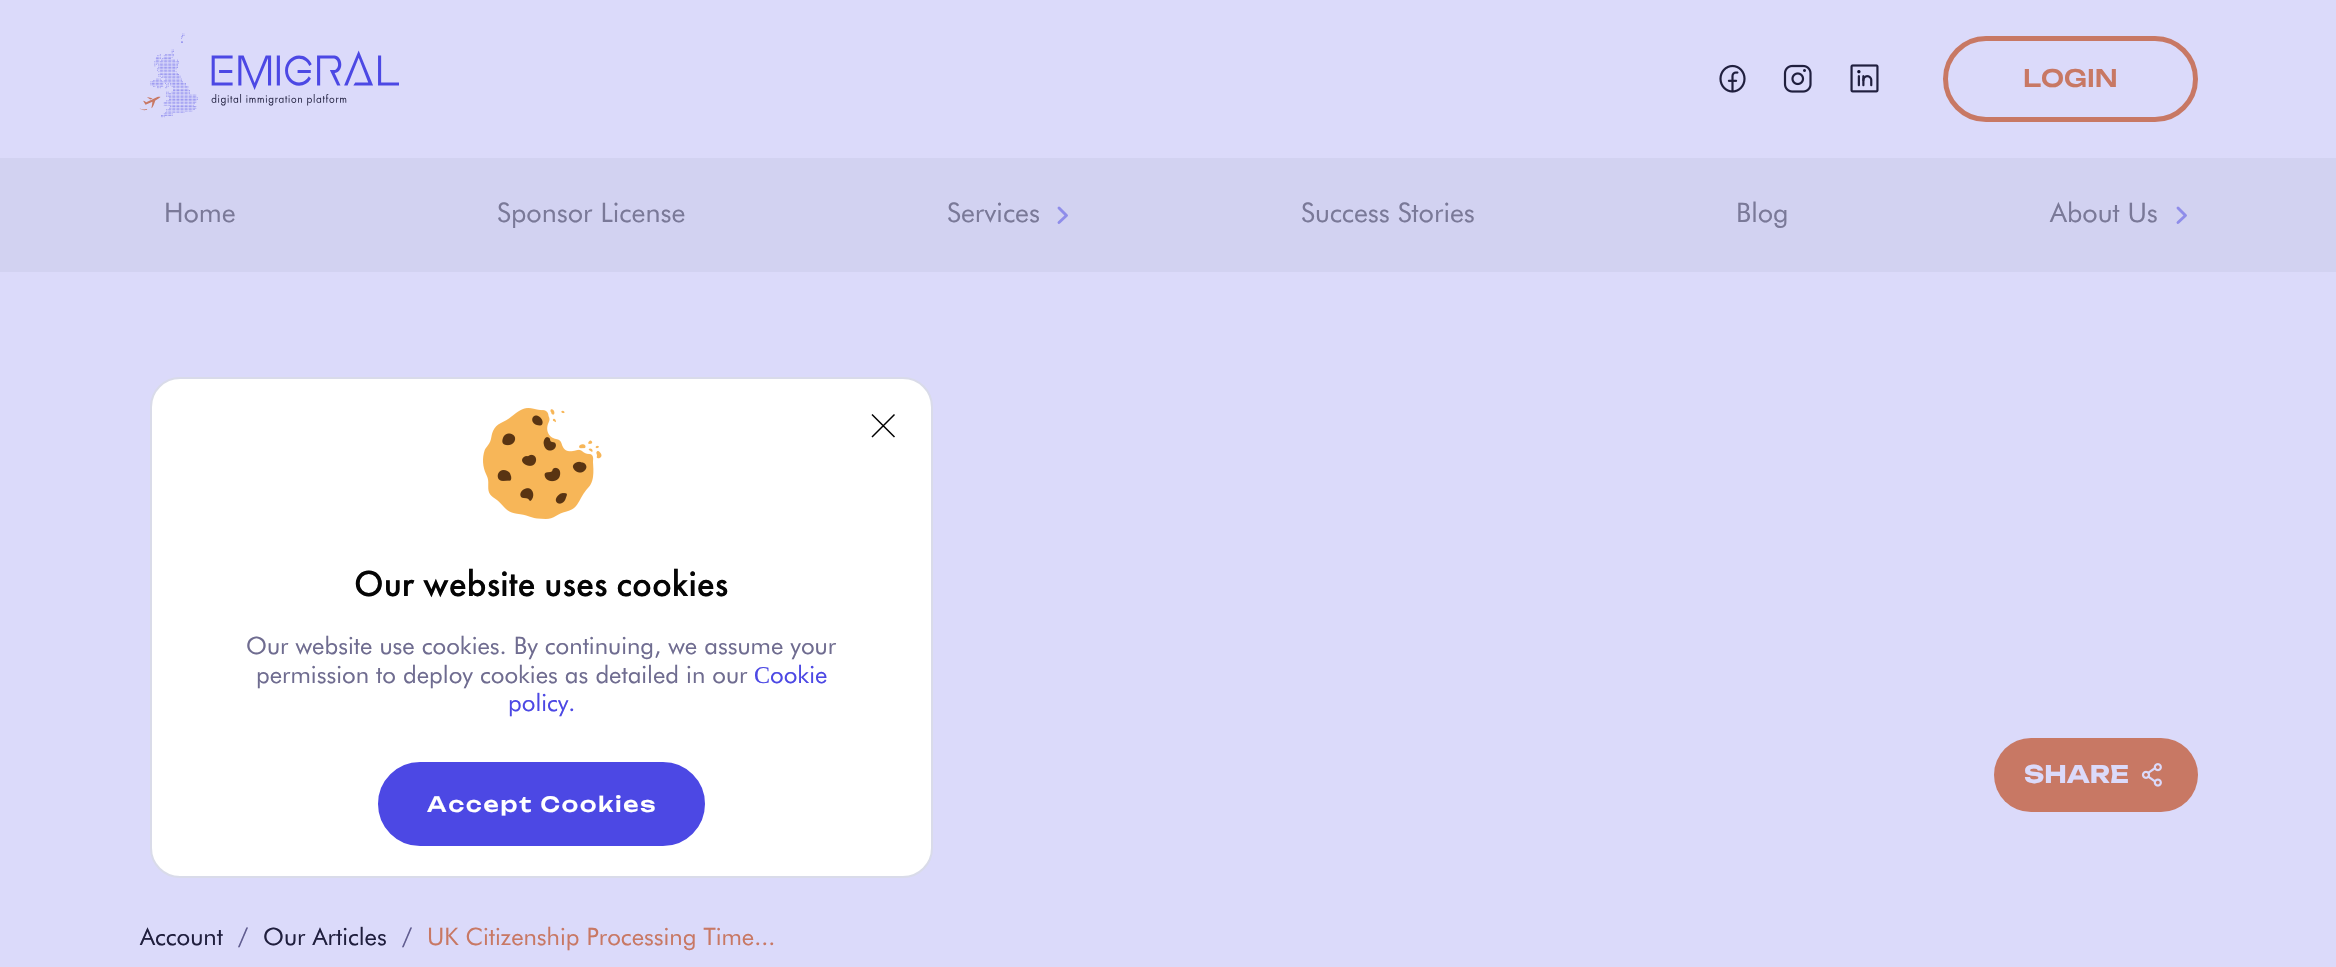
void draw(SkCanvas* canvas) {
    SkPaint paint;
    paint.setAntiAlias(true);
    auto spacedText = [&](const char* s, float x, float y, const SkFont& font, const SkPaint& ink, float letter, float word) {
        std::vector<SkGlyphID> glyphs(font.countText(s, strlen(s), SkTextEncoding::kUTF8));
        std::vector<float> xs(glyphs.size());
        font.textToGlyphs(s, strlen(s), SkTextEncoding::kUTF8, glyphs);
        font.getXPos(glyphs, xs, x);
        float extra = 0;
        for (size_t i = 0; i < glyphs.size(); i++) {
            xs[i] += extra;
            extra += letter + word * (glyphs[i] == font.unicharToGlyph(' '));
        }
        canvas->drawTextBlob(SkTextBlob::MakeFromPosHGlyphs(glyphs, xs, y, font), 0, 0, ink);
    };
    canvas->clear(0xFFDBDAFA);
    canvas->drawImageRect(SkImages::DeferredFromEncodedData(SkData::MakeFromFileName("img1.png")), SkRect::MakeXYWH(139, 33, 260, 85), SkSamplingOptions());
    canvas->drawImageRect(SkImages::DeferredFromEncodedData(SkData::MakeFromFileName("img2.png")), SkRect::MakeXYWH(1719, 64, 27, 29), SkSamplingOptions());
    canvas->drawImageRect(SkImages::DeferredFromEncodedData(SkData::MakeFromFileName("img3.png")), SkRect::MakeXYWH(1783, 64, 29, 29), SkSamplingOptions());
    canvas->drawImageRect(SkImages::DeferredFromEncodedData(SkData::MakeFromFileName("img4.png")), SkRect::MakeXYWH(1850, 64, 29, 29), SkSamplingOptions());
    paint.setStyle(SkPaint::kStroke_Style);
    paint.setStrokeWidth(5);
    paint.setColor(0xFFC87864);
    canvas->drawRoundRect(SkRect::MakeXYWH(1945.5f, 38.5f, 250, 81), 40.5f, 40.5f, paint);
    SkFont font1(fontMgr->matchFamilyStyle("Unbounded", SkFontStyle(500, SkFontStyle::kNormal_Width, SkFontStyle::kUpright_Slant)), 24);
    font1.setSubpixel(true);
    paint.setStyle(SkPaint::kFill_Style);
    canvas->drawString("LOGIN", 2023, 87, font1, paint);
    paint.setColor(0xFFD2D2F1);
    canvas->drawRect(SkRect::MakeXYWH(0, 158, 2336, 114), paint);
    SkFont font2(fontMgr->matchFamilyStyle("Futura", SkFontStyle::Normal()), 27);
    font2.setSubpixel(true);
    paint.setColor(0xFF7A7998);
    canvas->drawString("Home", 164, 222, font2, paint);
    canvas->drawString("Sponsor License", 497, 222, font2, paint);
    canvas->drawString("Services", 947, 222, font2, paint);
    paint.setStyle(SkPaint::kStroke_Style);
    paint.setStrokeWidth(2.9f);
    paint.setStrokeCap(SkPaint::kRound_Cap);
    paint.setStrokeJoin(SkPaint::kRound_Join);
    paint.setColor(0xFF8F8DEA);
    canvas->drawPath(SkPathBuilder().moveTo(1059, 222.5f).lineTo(1066.5f, 215.5f).lineTo(1059, 208).detach(), paint);
    paint.setStyle(SkPaint::kFill_Style);
    paint.setColor(0xFF7A7998);
    canvas->drawString("Success Stories", 1301, 222, font2, paint);
    canvas->drawString("Blog", 1736, 222, font2, paint);
    canvas->drawString("About Us", 2050, 222, font2, paint);
    paint.setStyle(SkPaint::kStroke_Style);
    paint.setColor(0xFF8F8DEA);
    canvas->drawPath(SkPathBuilder().moveTo(2178, 222.5f).lineTo(2185.5f, 215.5f).lineTo(2178, 208).detach(), paint);
    paint.setStyle(SkPaint::kFill_Style);
    paint.setColor(0xFFC87864);
    canvas->drawRoundRect(SkRect::MakeXYWH(1994, 738, 204, 74), 37, 37, paint);
    SkFont font3(fontMgr->matchFamilyStyle("Unbounded", SkFontStyle::Bold()), 24);
    font3.setSubpixel(true);
    paint.setColor(0xFFDBDAFA);
    canvas->drawString("SHARE", 2024, 783, font3, paint);
    canvas->drawImageRect(SkImages::DeferredFromEncodedData(SkData::MakeFromFileName("img5.png")), SkRect::MakeXYWH(2141, 763, 21, 24), SkSamplingOptions());
    SkFont font4(fontMgr->matchFamilyStyle("Futura", SkFontStyle::Normal()), 24);
    font4.setSubpixel(true);
    paint.setColor(0xFF201F3E);
    canvas->drawString("Account", 140, 945, font4, paint);
    paint.setColor(0xFF605C90);
    canvas->drawString("/", 238, 945, font4, paint);
    paint.setColor(0xFF201F3E);
    canvas->drawString("Our Articles", 263, 945, font4, paint);
    paint.setColor(0xFF605C90);
    canvas->drawString("/", 402, 945, font4, paint);
    paint.setColor(0xFFC87864);
    canvas->drawString("UK Citizenship Processing Time...", 427, 945, font4, paint);
    paint.setColor(0xFFFFFFFF);
    canvas->drawRoundRect(SkRect::MakeXYWH(151, 378, 781, 499), 29, 29, paint);
    paint.setStyle(SkPaint::kStroke_Style);
    paint.setStrokeWidth(2);
    paint.setStrokeCap(SkPaint::kButt_Cap);
    paint.setStrokeJoin(SkPaint::kMiter_Join);
    paint.setColor(0xFFD9DBE9);
    canvas->drawRoundRect(SkRect::MakeXYWH(151, 378, 781, 499), 29, 29, paint);
    paint.setStrokeWidth(1.5f);
    paint.setColor(0xFF000000);
    canvas->drawPath(SkPathBuilder().moveTo(872, 437).lineTo(894.5f, 414.5f).moveTo(872, 414.5f).lineTo(894.5f, 437).detach(), paint);
    canvas->drawImageRect(SkImages::DeferredFromEncodedData(SkData::MakeFromFileName("img6.png")), SkRect::MakeXYWH(483, 408, 119, 111), SkSamplingOptions());
    SkFont font5(fontMgr->matchFamilyStyle("Futura PT", SkFontStyle(500, SkFontStyle::kNormal_Width, SkFontStyle::kUpright_Slant)), 37.5f);
    font5.setSubpixel(true);
    paint.setStyle(SkPaint::kFill_Style);
    paint.setColor(0xFF050505);
    canvas->drawString("Our website uses cookies", 354, 596, font5, paint);
    paint.setColor(0xFF6F6C90);
    canvas->drawString("Our website use cookies. By continuing, we assume your", 246, 654, font4, paint);
    canvas->drawString("permission to deploy cookies as detailed in our", 256, 683, font4, paint);
    SkFont font6(fontMgr->matchFamilyStyle("Liberation Serif", SkFontStyle::Normal()), 24);
    font6.setSubpixel(true);
    paint.setColor(0xFF4C48E4);
    canvas->drawString("С", 754, 683, font6, paint);
    canvas->drawString("ookie", 770, 683, font4, paint);
    canvas->drawString("policy.", 508, 711, font4, paint);
    canvas->drawRoundRect(SkRect::MakeXYWH(379.5f, 763.5f, 324, 81), 40.5f, 40.5f, paint);
    paint.setStyle(SkPaint::kStroke_Style);
    paint.setStrokeWidth(3);
    canvas->drawRoundRect(SkRect::MakeXYWH(379.5f, 763.5f, 324, 81), 40.5f, 40.5f, paint);
    SkFont font7(fontMgr->matchFamilyStyle("Unbounded", SkFontStyle(500, SkFontStyle::kNormal_Width, SkFontStyle::kUpright_Slant)), 21);
    font7.setSubpixel(true);
    paint.setStyle(SkPaint::kFill_Style);
    paint.setColor(0xFFFFFFFF);
    spacedText("Accept Cookies", 427, 812, font7, paint, 1.9f, 0);
}
